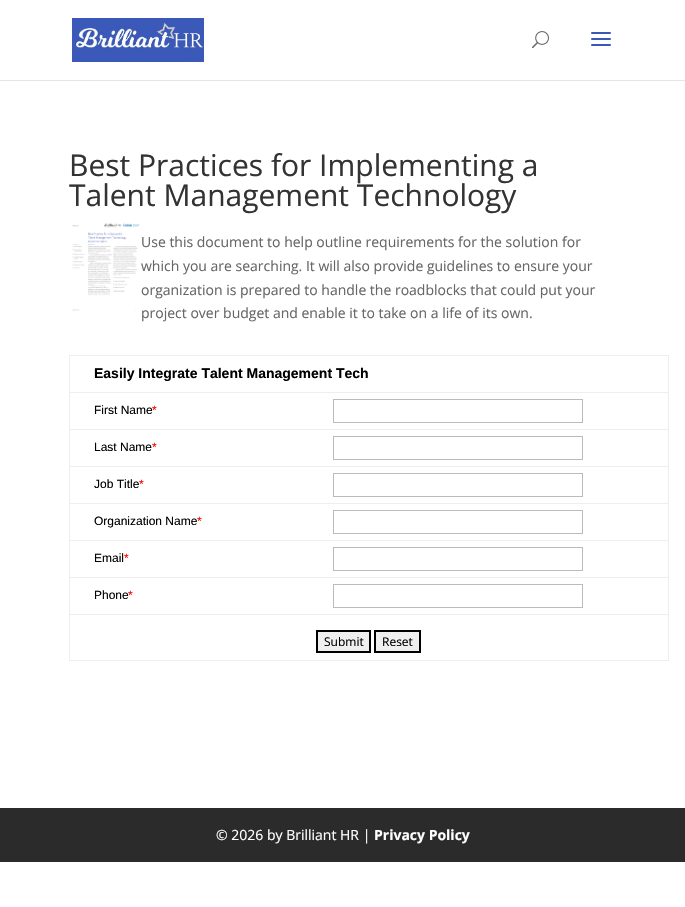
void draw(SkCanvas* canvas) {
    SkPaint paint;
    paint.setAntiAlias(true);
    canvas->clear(0xFFFFFFFF);
    paint.setColor(0xFFE6E6E6);
    canvas->drawRect(SkRect::MakeXYWH(0, 80, 685, 1), paint);
    canvas->drawImageRect(SkImages::DeferredFromEncodedData(SkData::MakeFromFileName("img1.png")), SkRect::MakeXYWH(72, 18, 132, 44), SkSamplingOptions());
    canvas->drawImageRect(SkImages::DeferredFromEncodedData(SkData::MakeFromFileName("img2.png")), SkRect::MakeXYWH(532, 31, 17, 18), SkSamplingOptions());
    canvas->drawImageRect(SkImages::DeferredFromEncodedData(SkData::MakeFromFileName("img3.png")), SkRect::MakeXYWH(591, 32, 20, 14), SkSamplingOptions());
    SkFont font1(fontMgr->matchFamilyStyle("Open Sans", SkFontStyle::Normal()), 30);
    font1.setSubpixel(true);
    paint.setColor(0xFF333333);
    canvas->drawString("Best Practices for Implementing a", 69, 176, font1, paint);
    canvas->drawString("Talent Management Technology", 69, 206, font1, paint);
    canvas->drawImageRect(SkImages::DeferredFromEncodedData(SkData::MakeFromFileName("img4.png")), SkRect::MakeXYWH(72, 223, 68, 88), SkSamplingOptions());
    SkFont font2(fontMgr->matchFamilyStyle("Open Sans", SkFontStyle::Normal()), 14);
    font2.setSubpixel(true);
    paint.setColor(0xFF666666);
    canvas->drawString("Use this document to help outline requirements for the solution for", 141, 247, font2, paint);
    canvas->drawString("which you are searching. It will also provide guidelines to ensure your", 141, 271, font2, paint);
    canvas->drawString("organization is prepared to handle the roadblocks that could put your", 141, 295, font2, paint);
    canvas->drawString("project over budget and enable it to take on a life of its own.", 141, 318, font2, paint);
    paint.setColor(0xFFEEEEEE);
    canvas->drawRect(SkRect::MakeXYWH(69, 355, 600, 1), paint);
    canvas->drawRect(SkRect::MakeXYWH(668, 355, 1, 306), paint);
    canvas->drawRect(SkRect::MakeXYWH(69, 660, 600, 1), paint);
    canvas->drawRect(SkRect::MakeXYWH(69, 355, 1, 306), paint);
    SkFont font3(fontMgr->matchFamilyStyle("Liberation Sans", SkFontStyle::Bold()), 14);
    font3.setSubpixel(true);
    paint.setColor(0xFF000000);
    canvas->drawString("Easily Integrate Talent Management Tech", 94, 378, font3, paint);
    paint.setColor(0xFFEEEEEE);
    canvas->drawRect(SkRect::MakeXYWH(69, 392, 600, 1), paint);
    paint.setStyle(SkPaint::kStroke_Style);
    paint.setStrokeWidth(1);
    paint.setColor(0xFFBBBBBB);
    canvas->drawRect(SkRect::MakeXYWH(333.5f, 399.5f, 249, 23), paint);
    SkFont font4(fontMgr->matchFamilyStyle("Liberation Sans", SkFontStyle::Normal()), 12);
    font4.setSubpixel(true);
    paint.setStyle(SkPaint::kFill_Style);
    paint.setColor(0xFF000000);
    canvas->drawString("First Name", 94, 414, font4, paint);
    paint.setColor(0xFFFF0000);
    canvas->drawString("*", 152, 414, font4, paint);
    paint.setColor(0xFFEEEEEE);
    canvas->drawRect(SkRect::MakeXYWH(69, 429, 600, 1), paint);
    paint.setStyle(SkPaint::kStroke_Style);
    paint.setColor(0xFFBBBBBB);
    canvas->drawRect(SkRect::MakeXYWH(333.5f, 436.5f, 249, 23), paint);
    paint.setStyle(SkPaint::kFill_Style);
    paint.setColor(0xFF000000);
    canvas->drawString("Last Name", 94, 451, font4, paint);
    paint.setColor(0xFFFF0000);
    canvas->drawString("*", 152, 451, font4, paint);
    paint.setColor(0xFFEEEEEE);
    canvas->drawRect(SkRect::MakeXYWH(69, 466, 600, 1), paint);
    paint.setStyle(SkPaint::kStroke_Style);
    paint.setColor(0xFFBBBBBB);
    canvas->drawRect(SkRect::MakeXYWH(333.5f, 473.5f, 249, 23), paint);
    paint.setStyle(SkPaint::kFill_Style);
    paint.setColor(0xFF000000);
    canvas->drawString("Job Title", 94, 488, font4, paint);
    paint.setColor(0xFFFF0000);
    canvas->drawString("*", 139, 488, font4, paint);
    paint.setColor(0xFFEEEEEE);
    canvas->drawRect(SkRect::MakeXYWH(69, 503, 600, 1), paint);
    paint.setStyle(SkPaint::kStroke_Style);
    paint.setColor(0xFFBBBBBB);
    canvas->drawRect(SkRect::MakeXYWH(333.5f, 510.5f, 249, 23), paint);
    paint.setStyle(SkPaint::kFill_Style);
    paint.setColor(0xFF000000);
    canvas->drawString("Organization Name", 94, 525, font4, paint);
    paint.setColor(0xFFFF0000);
    canvas->drawString("*", 197, 525, font4, paint);
    paint.setColor(0xFFEEEEEE);
    canvas->drawRect(SkRect::MakeXYWH(69, 540, 600, 1), paint);
    paint.setStyle(SkPaint::kStroke_Style);
    paint.setColor(0xFFBBBBBB);
    canvas->drawRect(SkRect::MakeXYWH(333.5f, 547.5f, 249, 23), paint);
    paint.setStyle(SkPaint::kFill_Style);
    paint.setColor(0xFF000000);
    canvas->drawString("Email", 94, 562, font4, paint);
    paint.setColor(0xFFFF0000);
    canvas->drawString("*", 124, 562, font4, paint);
    paint.setColor(0xFFEEEEEE);
    canvas->drawRect(SkRect::MakeXYWH(69, 577, 600, 1), paint);
    paint.setStyle(SkPaint::kStroke_Style);
    paint.setColor(0xFFBBBBBB);
    canvas->drawRect(SkRect::MakeXYWH(333.5f, 584.5f, 249, 23), paint);
    paint.setStyle(SkPaint::kFill_Style);
    paint.setColor(0xFF000000);
    canvas->drawString("Phone", 94, 599, font4, paint);
    paint.setColor(0xFFFF0000);
    canvas->drawString("*", 128, 599, font4, paint);
    paint.setColor(0xFFEEEEEE);
    canvas->drawRect(SkRect::MakeXYWH(69, 614, 600, 1), paint);
    paint.setColor(0xFFEFEFEF);
    canvas->drawRect(SkRect::MakeXYWH(317, 631, 53, 21), paint);
    paint.setStyle(SkPaint::kStroke_Style);
    paint.setStrokeWidth(2);
    paint.setColor(0xFF000000);
    canvas->drawRect(SkRect::MakeXYWH(317, 631, 53, 21), paint);
    SkFont font5(fontMgr->matchFamilyStyle("Open Sans", SkFontStyle::Normal()), 12);
    font5.setSubpixel(true);
    paint.setStyle(SkPaint::kFill_Style);
    canvas->drawString("Submit", 324, 646, font5, paint);
    paint.setColor(0xFFEFEFEF);
    canvas->drawRect(SkRect::MakeXYWH(375, 631, 45, 21), paint);
    paint.setStyle(SkPaint::kStroke_Style);
    paint.setColor(0xFF000000);
    canvas->drawRect(SkRect::MakeXYWH(375, 631, 45, 21), paint);
    paint.setStyle(SkPaint::kFill_Style);
    canvas->drawString("Reset", 382, 646, font5, paint);
    paint.setColor(0xFF2B2B2B);
    canvas->drawRect(SkRect::MakeXYWH(0, 808, 685, 54), paint);
    paint.setColor(0xFFFFFFFF);
    canvas->drawString("© 2026 by Brilliant HR |", 216, 840, font2, paint);
    SkFont font6(fontMgr->matchFamilyStyle("Open Sans", SkFontStyle::Bold()), 14);
    font6.setSubpixel(true);
    canvas->drawString("Privacy Policy", 374, 840, font6, paint);
}
